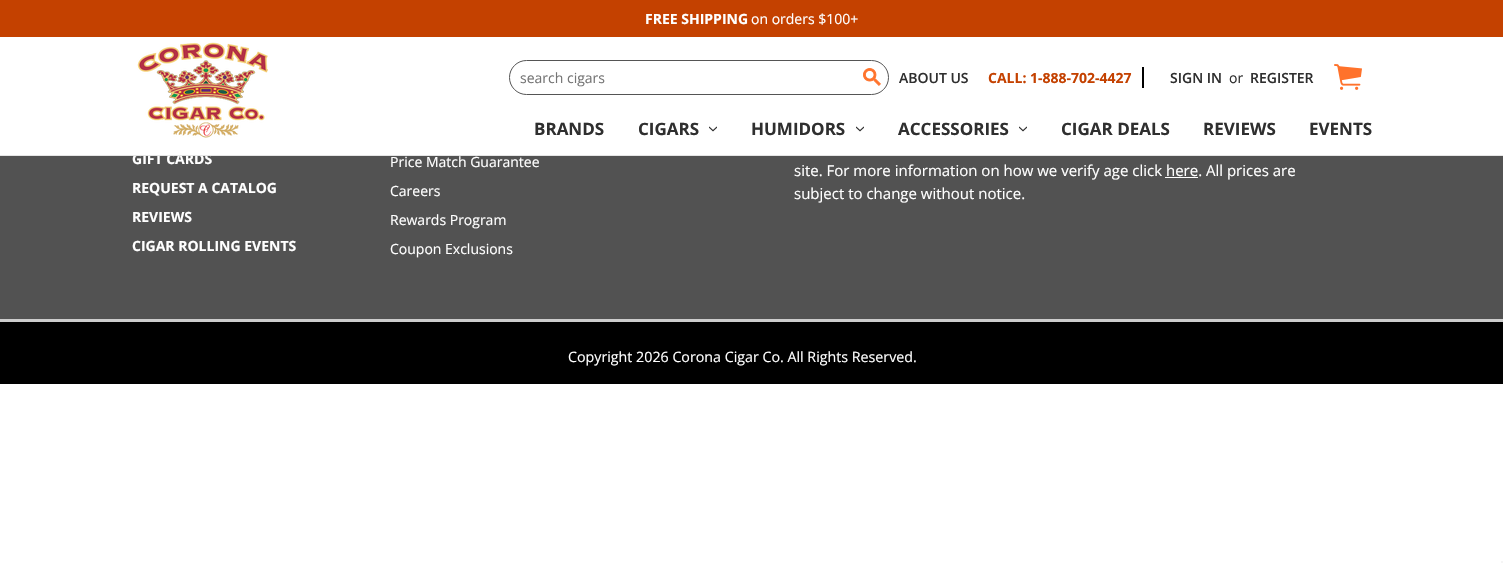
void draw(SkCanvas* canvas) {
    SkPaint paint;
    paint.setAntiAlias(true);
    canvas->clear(0xFFFFFFFF);
    paint.setColor(0xFFC44100);
    canvas->drawRect(SkRect::MakeXYWH(0, 0, 1503, 37), paint);
    SkFont font1(fontMgr->matchFamilyStyle("Open Sans", SkFontStyle::Bold()), 14);
    font1.setSubpixel(true);
    paint.setColor(0xFFFFFFFF);
    canvas->drawString("FREE SHIPPING", 645, 24, font1, paint);
    SkFont font2(fontMgr->matchFamilyStyle("Open Sans", SkFontStyle::Normal()), 14);
    font2.setSubpixel(true);
    canvas->drawString("on orders $100+", 751, 24, font2, paint);
    canvas->drawImageRect(SkImages::DeferredFromEncodedData(SkData::MakeFromFileName("img1.png")), SkRect::MakeXYWH(137, 42, 131, 96), SkSamplingOptions());
    paint.setStyle(SkPaint::kStroke_Style);
    paint.setStrokeWidth(1);
    paint.setColor(0xFF555555);
    canvas->drawRoundRect(SkRect::MakeXYWH(509.5f, 60.5f, 379, 34), 17, 17, paint);
    paint.setStyle(SkPaint::kFill_Style);
    paint.setColor(0xFF757575);
    canvas->drawString("search cigars", 520, 83, font2, paint);
    canvas->drawImageRect(SkImages::DeferredFromEncodedData(SkData::MakeFromFileName("img2.png")), SkRect::MakeXYWH(863, 68, 18, 18), SkSamplingOptions());
    SkFont font3(fontMgr->matchFamilyStyle("Open Sans", SkFontStyle(600, SkFontStyle::kNormal_Width, SkFontStyle::kUpright_Slant)), 14);
    font3.setSubpixel(true);
    paint.setColor(0xFF2F2F2F);
    canvas->drawString("ABOUT US", 899, 83, font3, paint);
    paint.setColor(0xFFC44100);
    canvas->drawString("CALL: 1-888-702-4427", 988, 83, font1, paint);
    paint.setColor(0xFF000000);
    canvas->drawRect(SkRect::MakeXYWH(1142, 67, 2, 21), paint);
    paint.setColor(0xFF2F2F2F);
    canvas->drawString("SIGN IN", 1170, 83, font3, paint);
    canvas->drawString("or", 1229, 83, font2, paint);
    canvas->drawString("REGISTER", 1250, 83, font3, paint);
    canvas->drawImageRect(SkImages::DeferredFromEncodedData(SkData::MakeFromFileName("img3.png")), SkRect::MakeXYWH(1334, 64, 28, 26), SkSamplingOptions());
    SkFont font4(fontMgr->matchFamilyStyle("Open Sans", SkFontStyle::Bold()), 17);
    font4.setSubpixel(true);
    canvas->drawString("BRANDS", 534, 135, font4, paint);
    canvas->drawString("CIGARS", 638, 135, font4, paint);
    canvas->drawImageRect(SkImages::DeferredFromEncodedData(SkData::MakeFromFileName("img4.png")), SkRect::MakeXYWH(709, 126, 8, 6), SkSamplingOptions());
    canvas->drawString("HUMIDORS", 751, 135, font4, paint);
    canvas->drawImageRect(SkImages::DeferredFromEncodedData(SkData::MakeFromFileName("img4.png")), SkRect::MakeXYWH(856, 126, 8, 6), SkSamplingOptions());
    canvas->drawString("ACCESSORIES", 898, 135, font4, paint);
    canvas->drawImageRect(SkImages::DeferredFromEncodedData(SkData::MakeFromFileName("img4.png")), SkRect::MakeXYWH(1019, 126, 8, 6), SkSamplingOptions());
    canvas->drawString("CIGAR DEALS", 1061, 135, font4, paint);
    canvas->drawString("REVIEWS", 1203, 135, font4, paint);
    canvas->drawString("EVENTS", 1309, 135, font4, paint);
    paint.setColor(0xFF525252);
    canvas->drawRect(SkRect::MakeXYWH(0, 156, 1503, 163), paint);
    paint.setColor(0xFFFFFFFF);
    canvas->drawString("GIFT CARDS", 132, 164, font1, paint);
    paint.setColor(0xFFE5E5E5);
    canvas->drawRect(SkRect::MakeXYWH(0, 155, 1503, 1), paint);
    paint.setColor(0xFFFFFFFF);
    canvas->drawString("REQUEST A CATALOG", 132, 193, font1, paint);
    canvas->drawString("REVIEWS", 132, 222, font1, paint);
    canvas->drawString("CIGAR ROLLING EVENTS", 132, 251, font1, paint);
    canvas->drawString("Price Match Guarantee", 390, 167, font2, paint);
    canvas->drawString("Careers", 390, 196, font2, paint);
    canvas->drawString("Rewards Program", 390, 225, font2, paint);
    canvas->drawString("Coupon Exclusions", 390, 254, font2, paint);
    SkFont font5(fontMgr->matchFamilyStyle("Open Sans", SkFontStyle::Normal()), 15);
    font5.setSubpixel(true);
    canvas->drawString("site. For more information on how we verify age click here. All prices are", 794, 176, font5, paint);
    canvas->drawRect(SkRect::MakeXYWH(1165, 177, 33, 1), paint);
    canvas->drawString("subject to change without notice.", 794, 199, font5, paint);
    paint.setColor(0xFF000000);
    canvas->drawRect(SkRect::MakeXYWH(0, 322, 1503, 62), paint);
    paint.setColor(0xFFCCCCCC);
    canvas->drawRect(SkRect::MakeXYWH(0, 319, 1503, 3), paint);
    SkFont font6(fontMgr->matchFamilyStyle("Open Sans", SkFontStyle::Normal()), 14.25f);
    font6.setSubpixel(true);
    paint.setColor(0xFFFFFFFF);
    canvas->drawString("Copyright 2026 Corona Cigar Co. All Rights Reserved.", 568, 362, font6, paint);
    paint.setColor(0xFFF5F5F5);
    canvas->drawRect(SkRect::MakeXYWH(1501, 561, 2, 2), paint);
}
